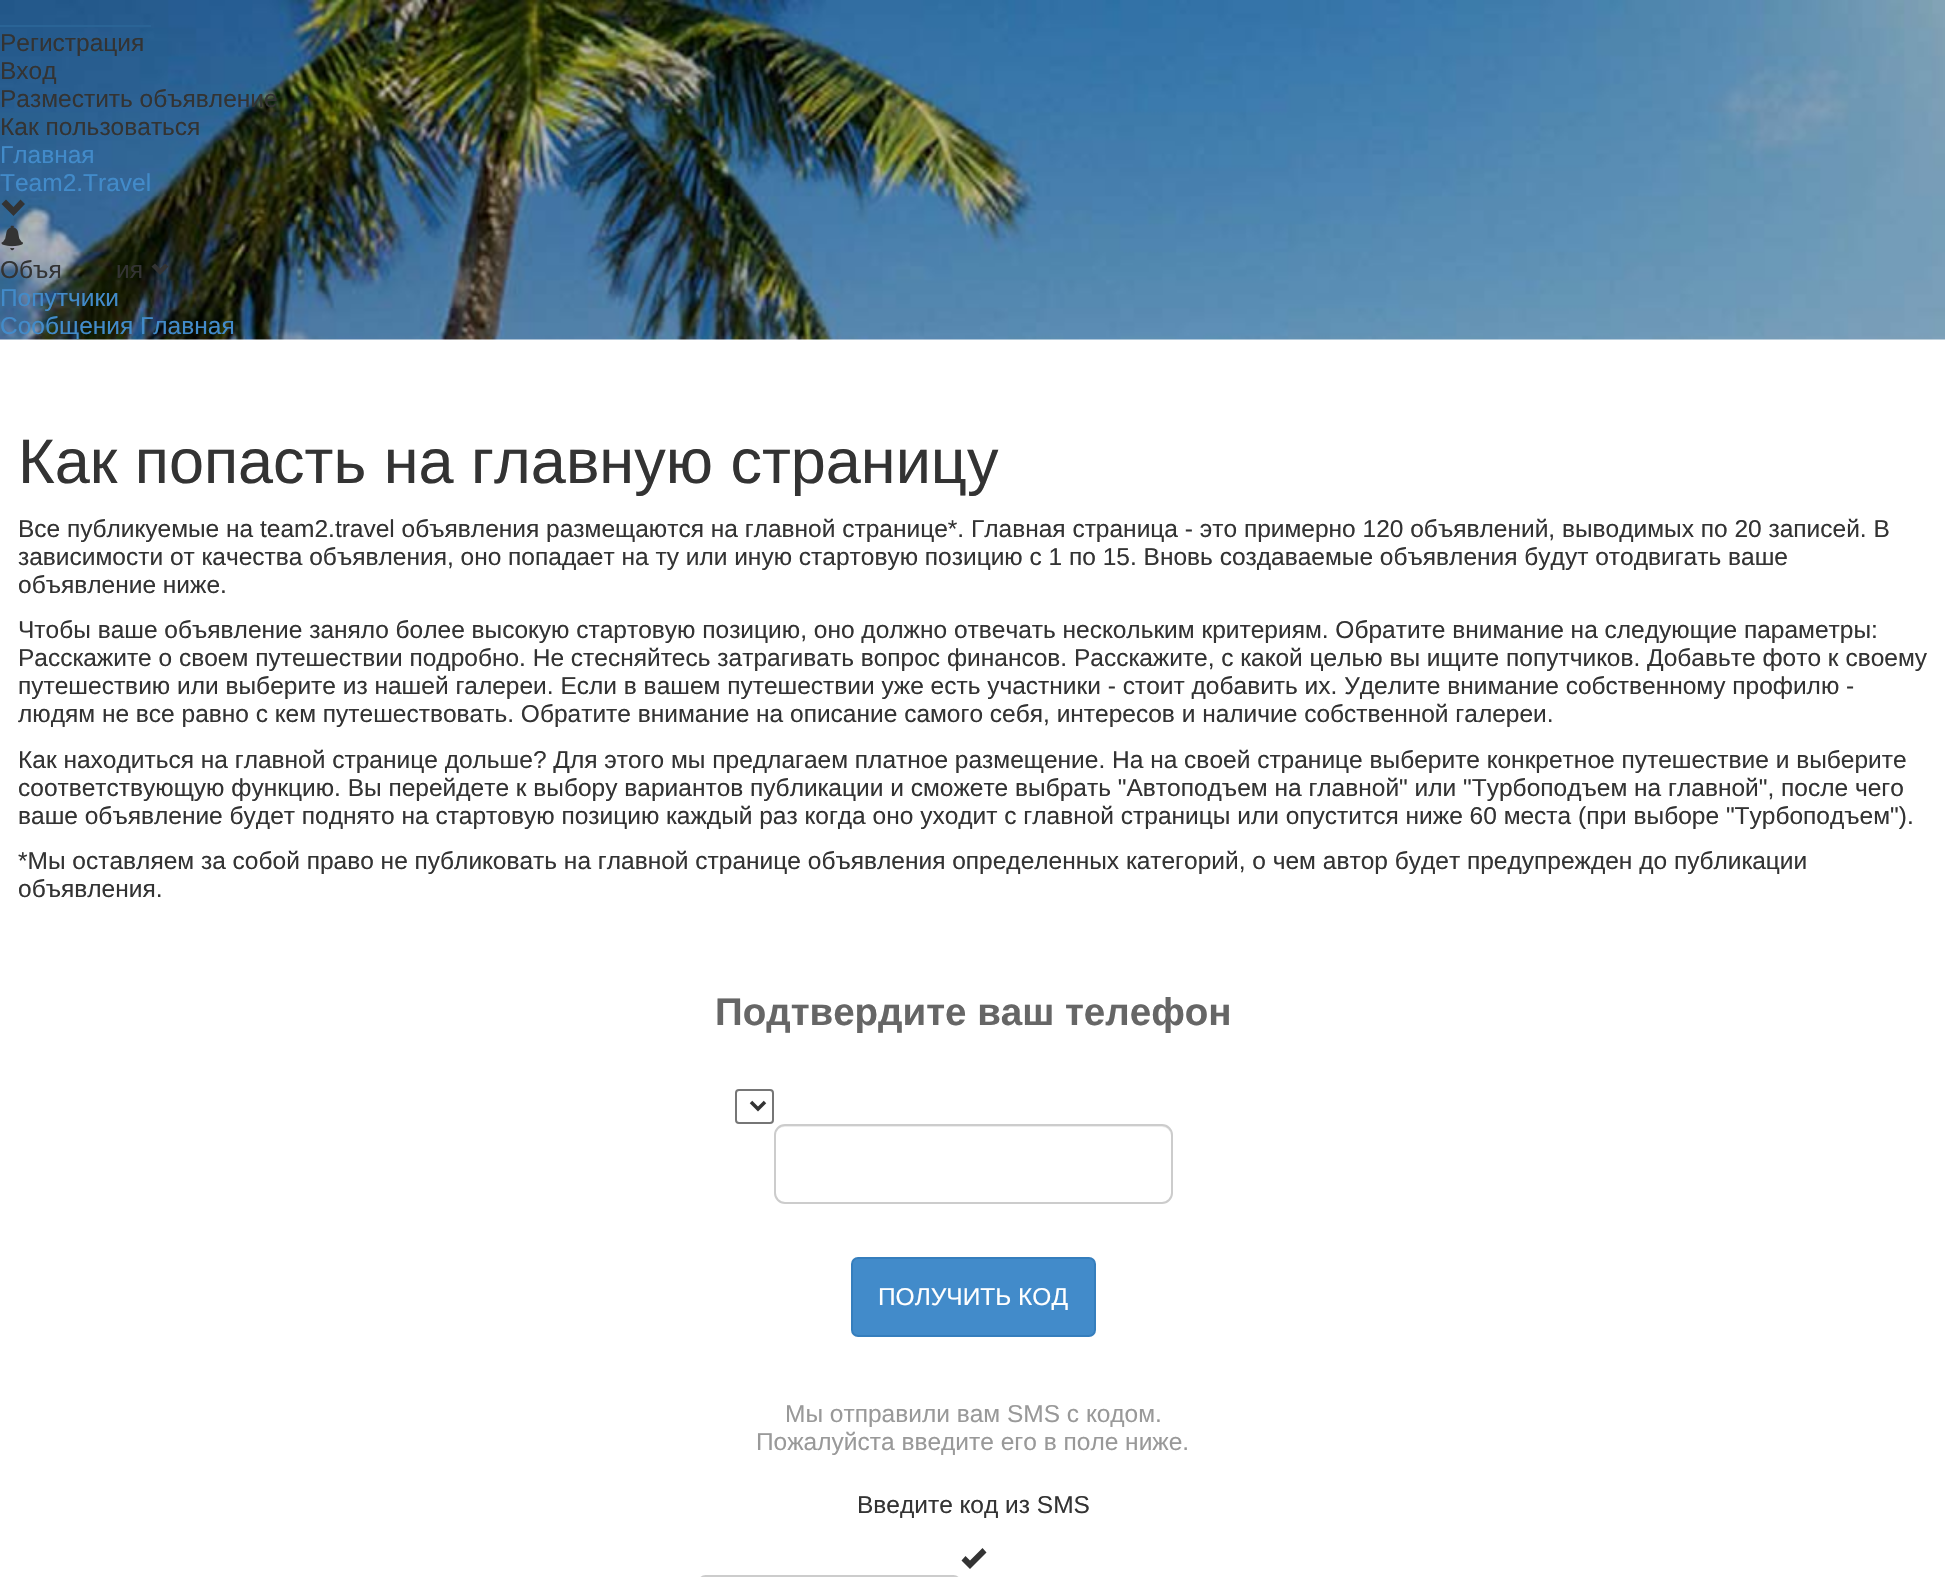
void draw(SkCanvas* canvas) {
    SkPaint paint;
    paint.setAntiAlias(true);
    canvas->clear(0xFFFFFFFF);
    canvas->drawImageRect(SkImages::DeferredFromEncodedData(SkData::MakeFromFileName("img1.png")), SkRect::MakeXYWH(0, 0, 1945, 340), SkSamplingOptions());
    paint.setColor(0xFF2A6496);
    canvas->drawRect(SkRect::MakeXYWH(0, 25, 151, 2), paint);
    SkFont font1(fontMgr->matchFamilyStyle("Liberation Sans", SkFontStyle::Normal()), 24.5f);
    font1.setSubpixel(true);
    paint.setColor(0xFF333333);
    canvas->drawString("Регистрация", 0, 51, font1, paint);
    canvas->drawString("Вход", 0, 79, font1, paint);
    canvas->drawString("Разместить объявление", 0, 107, font1, paint);
    canvas->drawString("Как пользоваться", 0, 135, font1, paint);
    paint.setColor(0xFF428BCA);
    canvas->drawString("Главная", 0, 163, font1, paint);
    canvas->drawString("Team2.Travel", 0, 191, font1, paint);
    paint.setColor(0xFF333333);
    canvas->drawPath(SkPathBuilder().moveTo(1.5f, 204).lineTo(13.5f, 216).lineTo(25, 204).lineTo(20.5f, 199.5f).lineTo(13.5f, 207).lineTo(6, 199.5f).close().detach(), paint);
    canvas->drawImageRect(SkImages::DeferredFromEncodedData(SkData::MakeFromFileName("img2.png")), SkRect::MakeXYWH(1, 225, 22, 26), SkSamplingOptions());
    canvas->drawString("Объя", 0, 278, font1, paint);
    canvas->drawString("ия", 116, 278, font1, paint);
    canvas->drawPath(SkPathBuilder().moveTo(151.5f, 266.5f).lineTo(160, 275).lineTo(168.5f, 266.5f).lineTo(165, 263.5f).lineTo(160, 268.5f).lineTo(155, 263.5f).close().detach(), paint);
    paint.setColor(0xFF428BCA);
    canvas->drawString("Попутчики", 0, 306, font1, paint);
    canvas->drawString("Сообщения Главная", 0, 334, font1, paint);
    SkFont font2(fontMgr->matchFamilyStyle("Liberation Sans", SkFontStyle::Normal()), 63);
    font2.setSubpixel(true);
    paint.setColor(0xFF333333);
    canvas->drawString("Как попасть на главную страницу", 18, 483, font2, paint);
    canvas->drawString("Все публикуемые на team2.travel объявления размещаются на главной странице*. Главная страница - это примерно 120 объявлений, выводимых по 20 записей. В", 18, 537, font1, paint);
    canvas->drawString("зависимости от качества объявления, оно попадает на ту или иную стартовую позицию с 1 по 15. Вновь создаваемые объявления будут отодвигать ваше", 18, 565, font1, paint);
    canvas->drawString("объявление ниже.", 18, 593, font1, paint);
    canvas->drawString("Чтобы ваше объявление заняло более высокую стартовую позицию, оно должно отвечать нескольким критериям. Обратите внимание на следующие параметры:", 18, 638, font1, paint);
    canvas->drawString("Расскажите о своем путешествии подробно. Не стесняйтесь затрагивать вопрос финансов. Расскажите, с какой целью вы ищите попутчиков. Добавьте фото к своему", 18, 666, font1, paint);
    canvas->drawString("путешествию или выберите из нашей галереи. Если в вашем путешествии уже есть участники - стоит добавить их. Уделите внимание собственному профилю -", 18, 694, font1, paint);
    canvas->drawString("людям не все равно с кем путешествовать. Обратите внимание на описание самого себя, интересов и наличие собственной галереи.", 18, 722, font1, paint);
    canvas->drawString("Как находиться на главной странице дольше? Для этого мы предлагаем платное размещение. На на своей странице выберите конкретное путешествие и выберите", 18, 768, font1, paint);
    canvas->drawString("соответствующую функцию. Вы перейдете к выбору вариантов публикации и сможете выбрать \"Автоподъем на главной\" или \"Турбоподъем на главной\", после чего", 18, 796, font1, paint);
    canvas->drawString("ваше объявление будет поднято на стартовую позицию каждый раз когда оно уходит с главной страницы или опустится ниже 60 места (при выборе \"Турбоподъем\").", 18, 824, font1, paint);
    canvas->drawString("*Мы оставляем за собой право не публиковать на главной странице объявления определенных категорий, о чем автор будет предупрежден до публикации", 18, 869, font1, paint);
    canvas->drawString("объявления.", 18, 897, font1, paint);
    SkFont font3(fontMgr->matchFamilyStyle("Liberation Sans", SkFontStyle::Bold()), 38.5f);
    font3.setSubpixel(true);
    paint.setColor(0xFF666666);
    canvas->drawString("Подтвердите ваш телефон", 715, 1025, font3, paint);
    paint.setStyle(SkPaint::kStroke_Style);
    paint.setStrokeWidth(2);
    paint.setColor(0xFF767676);
    canvas->drawRoundRect(SkRect::MakeXYWH(736, 1090, 37, 33), 3, 3, paint);
    paint.setStrokeWidth(3.5f);
    paint.setColor(0xFF333333);
    canvas->drawPath(SkPathBuilder().moveTo(751, 1102).lineTo(758, 1109).lineTo(765, 1102).detach(), paint);
    paint.setStyle(SkPaint::kFill_Style);
    paint.setColor(0xFFECECEC);
    canvas->drawPath(SkPathBuilder().moveTo(784, 1127).lineTo(1162, 1127).cubicTo(1167, 1127, 1171, 1131, 1171, 1136).cubicTo(1171, 1130, 1168, 1125, 1162, 1125).lineTo(782, 1125).cubicTo(777, 1126, 775, 1131, 775, 1136).cubicTo(775, 1131, 779, 1127, 784, 1127).close().detach(), paint);
    paint.setStyle(SkPaint::kStroke_Style);
    paint.setStrokeWidth(2);
    paint.setColor(0xFFCCCCCC);
    canvas->drawRoundRect(SkRect::MakeXYWH(775, 1125, 397, 78), 10, 10, paint);
    paint.setStyle(SkPaint::kFill_Style);
    paint.setColor(0xFF428BCA);
    canvas->drawRoundRect(SkRect::MakeXYWH(852, 1258, 243, 78), 6, 6, paint);
    paint.setStyle(SkPaint::kStroke_Style);
    paint.setColor(0xFF357EBD);
    canvas->drawRoundRect(SkRect::MakeXYWH(852, 1258, 243, 78), 6, 6, paint);
    paint.setStyle(SkPaint::kFill_Style);
    paint.setColor(0xFFFFFFFF);
    canvas->drawString("ПОЛУЧИТЬ КОД", 878, 1305, font1, paint);
    paint.setColor(0xFF999999);
    canvas->drawString("Мы отправили вам SMS с кодом.", 785, 1422, font1, paint);
    canvas->drawString("Пожалуйста введите его в поле ниже.", 756, 1450, font1, paint);
    paint.setColor(0xFF333333);
    canvas->drawString("Введите код из SMS", 857, 1513, font1, paint);
    canvas->drawPath(SkPathBuilder().moveTo(961.5f, 1560.5f).lineTo(970, 1569).lineTo(986.5f, 1552.5f).lineTo(982.5f, 1548).lineTo(970, 1560.5f).lineTo(965.5f, 1556).close().detach(), paint);
    paint.setStyle(SkPaint::kStroke_Style);
    paint.setColor(0xFFCCCCCC);
    canvas->drawRoundRect(SkRect::MakeXYWH(699, 1576, 261, 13), 10, 10, paint);
}
